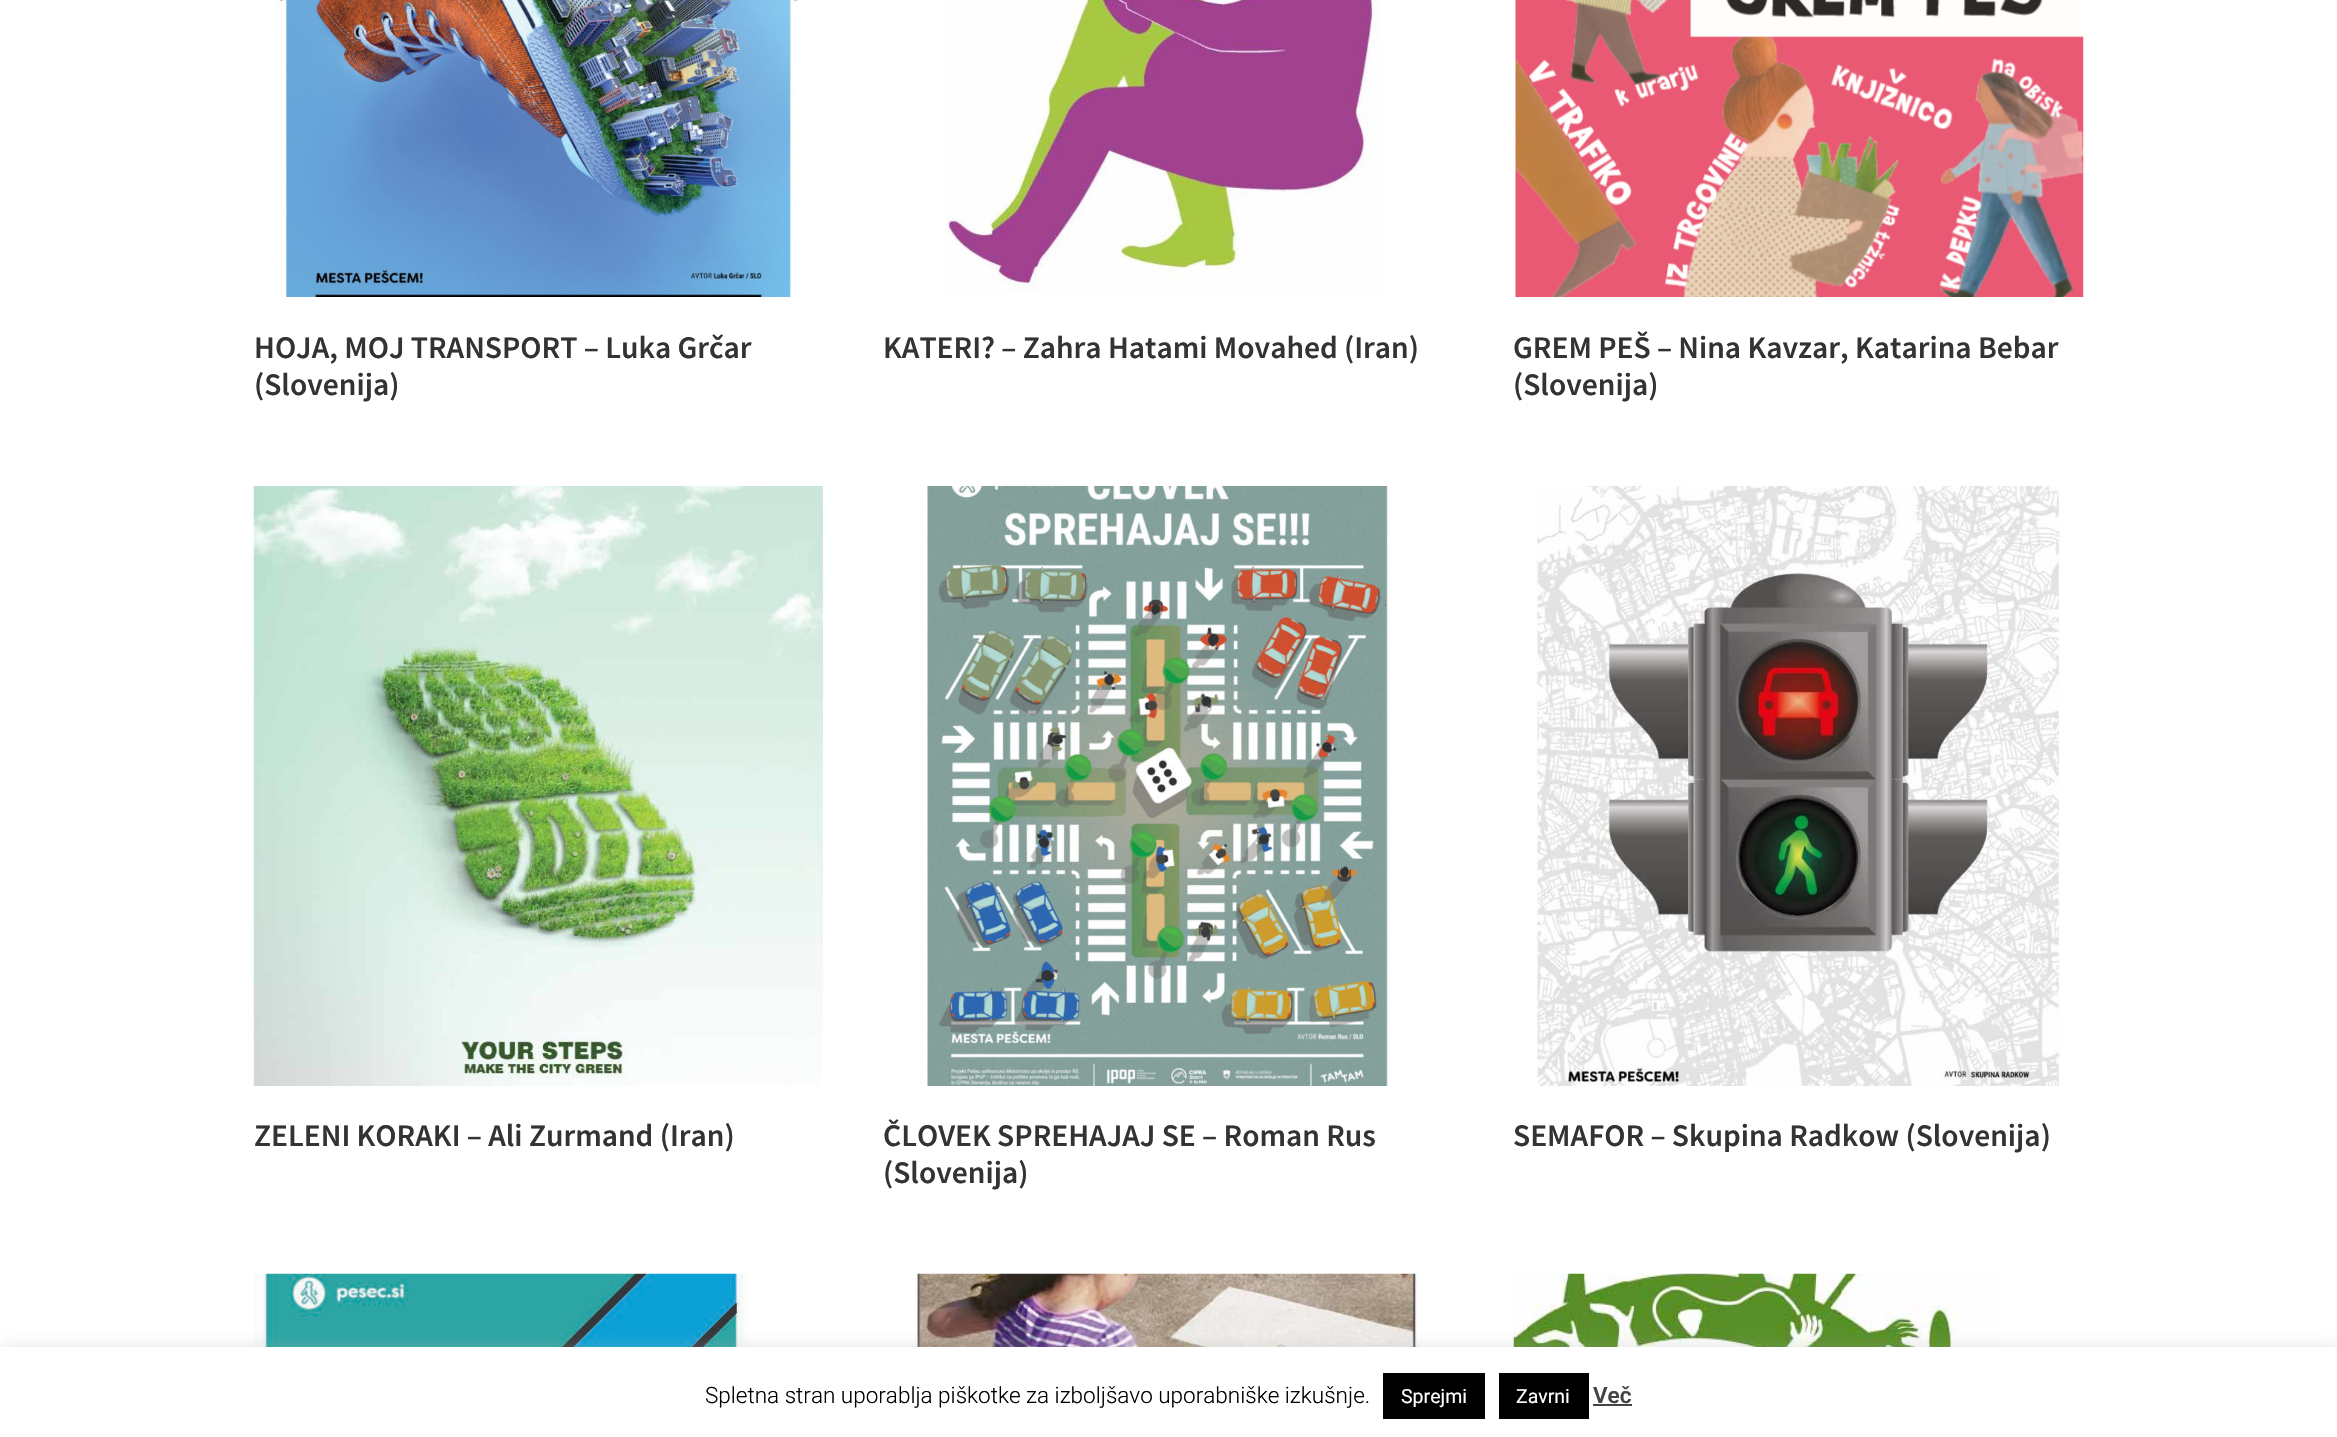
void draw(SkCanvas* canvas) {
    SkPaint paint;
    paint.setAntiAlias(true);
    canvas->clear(0xFFFFFFFF);
    canvas->drawImageRect(SkImages::DeferredFromEncodedData(SkData::MakeFromFileName("img1.png")), SkRect::MakeXYWH(277, 0, 522, 297), SkSamplingOptions());
    SkFont font1(fontMgr->matchFamilyStyle("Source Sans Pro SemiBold", SkFontStyle(600, SkFontStyle::kNormal_Width, SkFontStyle::kUpright_Slant)), 31.5f);
    font1.setSubpixel(true);
    paint.setColor(0xFF333333);
    canvas->drawString("HOJA, MOJ TRANSPORT – Luka Grčar", 254, 358, font1, paint);
    canvas->drawString("(Slovenija)", 254, 395, font1, paint);
    canvas->drawImageRect(SkImages::DeferredFromEncodedData(SkData::MakeFromFileName("img2.png")), SkRect::MakeXYWH(945, 0, 437, 293), SkSamplingOptions());
    canvas->drawString("KATERI? – Zahra Hatami Movahed (Iran)", 883, 358, font1, paint);
    canvas->drawImageRect(SkImages::DeferredFromEncodedData(SkData::MakeFromFileName("img3.png")), SkRect::MakeXYWH(1515, 0, 569, 297), SkSamplingOptions());
    canvas->drawString("GREM PEŠ – Nina Kavzar, Katarina Bebar", 1513, 358, font1, paint);
    canvas->drawString("(Slovenija)", 1513, 395, font1, paint);
    canvas->drawImageRect(SkImages::DeferredFromEncodedData(SkData::MakeFromFileName("img4.png")), SkRect::MakeXYWH(253, 486, 571, 600), SkSamplingOptions());
    canvas->drawString("ZELENI KORAKI – Ali Zurmand (Iran)", 254, 1146, font1, paint);
    canvas->drawImageRect(SkImages::DeferredFromEncodedData(SkData::MakeFromFileName("img5.png")), SkRect::MakeXYWH(925, 486, 463, 600), SkSamplingOptions());
    canvas->drawString("ČLOVEK SPREHAJAJ SE – Roman Rus", 883, 1146, font1, paint);
    canvas->drawString("(Slovenija)", 883, 1183, font1, paint);
    canvas->drawImageRect(SkImages::DeferredFromEncodedData(SkData::MakeFromFileName("img6.png")), SkRect::MakeXYWH(1535, 486, 525, 600), SkSamplingOptions());
    canvas->drawString("SEMAFOR – Skupina Radkow (Slovenija)", 1513, 1146, font1, paint);
    canvas->drawImageRect(SkImages::DeferredFromEncodedData(SkData::MakeFromFileName("img7.png")), SkRect::MakeXYWH(254, 1273, 493, 74), SkSamplingOptions());
    canvas->drawImageRect(SkImages::DeferredFromEncodedData(SkData::MakeFromFileName("img8.png")), SkRect::MakeXYWH(915, 1273, 503, 74), SkSamplingOptions());
    canvas->drawImageRect(SkImages::DeferredFromEncodedData(SkData::MakeFromFileName("img9.png")), SkRect::MakeXYWH(1513, 1273, 484, 74), SkSamplingOptions());
    paint.setColor(0x4DACABAB);
    paint.setMaskFilter(SkMaskFilter::MakeBlur(kNormal_SkBlurStyle, 7.5f));
    canvas->drawRect(SkRect::MakeXYWH(0, 1346, 2337, 90), paint);
    paint.setMaskFilter(nullptr);
    paint.setColor(0xFFFFFFFF);
    canvas->drawRect(SkRect::MakeXYWH(0, 1347, 2337, 90), paint);
    SkFont font2(fontMgr->matchFamilyStyle("Roboto", SkFontStyle(300, SkFontStyle::kNormal_Width, SkFontStyle::kUpright_Slant)), 22.5f);
    font2.setSubpixel(true);
    paint.setColor(0xFF000000);
    canvas->drawString("Spletna stran uporablja piškotke za izboljšavo uporabniške izkušnje.", 705, 1403, font2, paint);
    canvas->drawRect(SkRect::MakeXYWH(1383, 1373, 102, 46), paint);
    SkFont font3(fontMgr->matchFamilyStyle("Roboto", SkFontStyle::Normal()), 19.5f);
    font3.setSubpixel(true);
    paint.setColor(0xFFFFFFFF);
    canvas->drawString("Sprejmi", 1401, 1403, font3, paint);
    paint.setColor(0xFF000000);
    canvas->drawRect(SkRect::MakeXYWH(1499, 1373, 90, 46), paint);
    paint.setColor(0xFFFFFFFF);
    canvas->drawString("Zavrni", 1516, 1403, font3, paint);
    SkFont font4(fontMgr->matchFamilyStyle("Roboto", SkFontStyle(600, SkFontStyle::kNormal_Width, SkFontStyle::kUpright_Slant)), 22.5f);
    font4.setSubpixel(true);
    paint.setColor(0xFF444444);
    canvas->drawString("Več", 1593, 1403, font4, paint);
    canvas->drawRect(SkRect::MakeXYWH(1593, 1404, 39, 2), paint);
}
